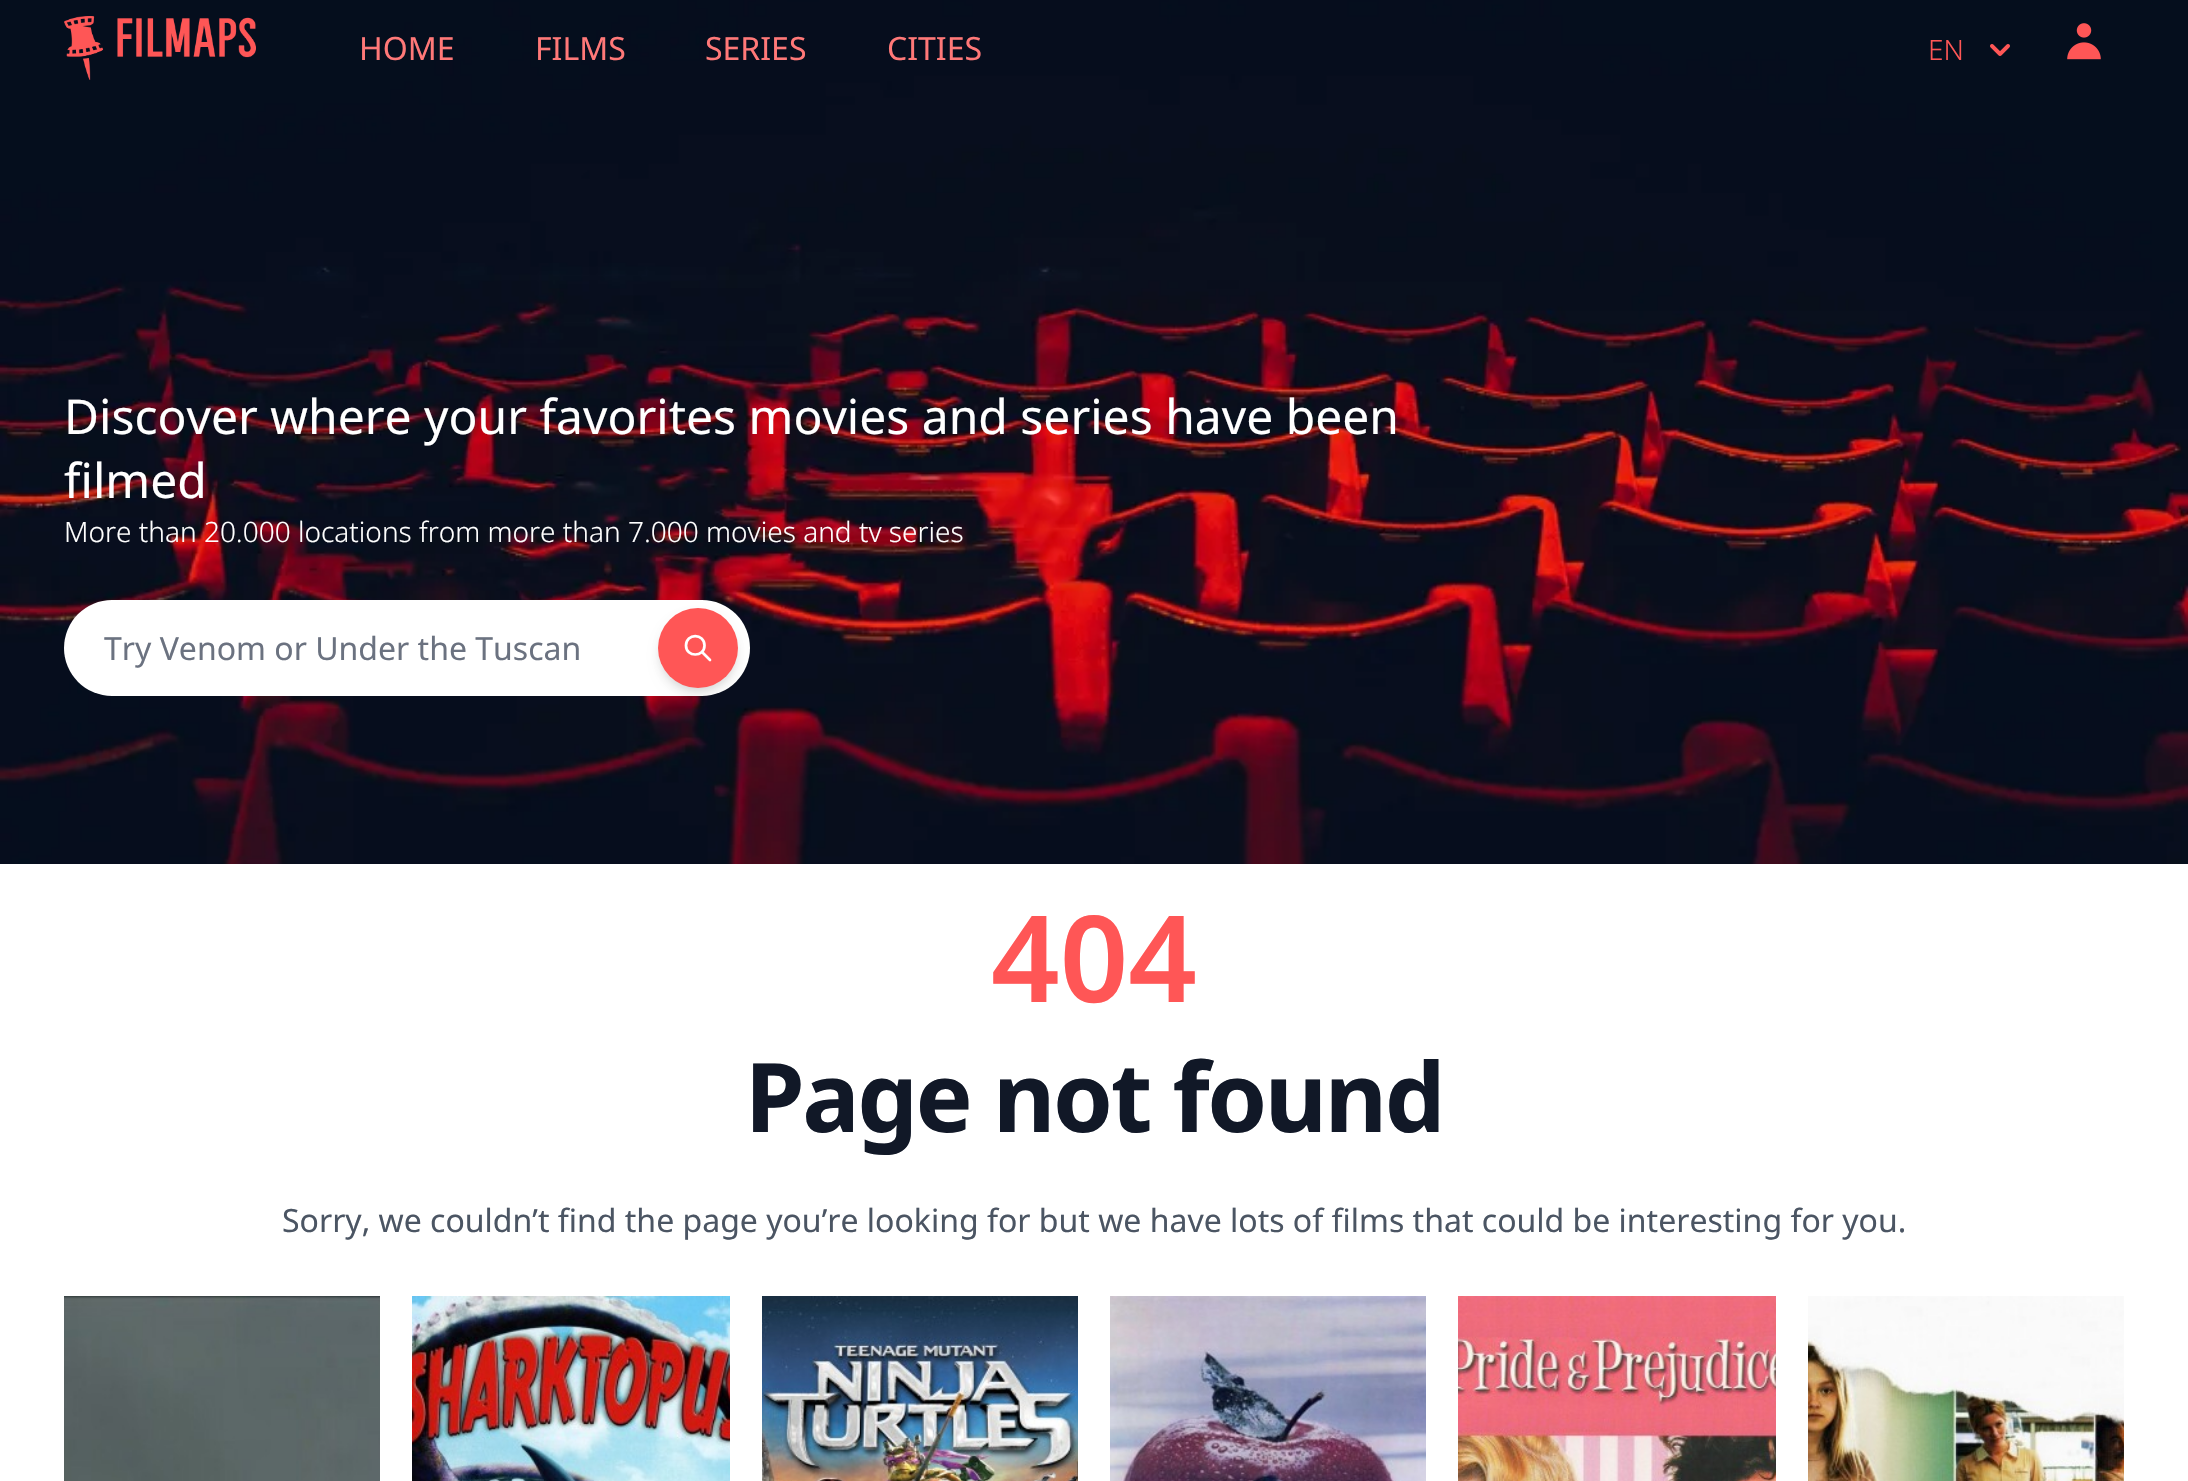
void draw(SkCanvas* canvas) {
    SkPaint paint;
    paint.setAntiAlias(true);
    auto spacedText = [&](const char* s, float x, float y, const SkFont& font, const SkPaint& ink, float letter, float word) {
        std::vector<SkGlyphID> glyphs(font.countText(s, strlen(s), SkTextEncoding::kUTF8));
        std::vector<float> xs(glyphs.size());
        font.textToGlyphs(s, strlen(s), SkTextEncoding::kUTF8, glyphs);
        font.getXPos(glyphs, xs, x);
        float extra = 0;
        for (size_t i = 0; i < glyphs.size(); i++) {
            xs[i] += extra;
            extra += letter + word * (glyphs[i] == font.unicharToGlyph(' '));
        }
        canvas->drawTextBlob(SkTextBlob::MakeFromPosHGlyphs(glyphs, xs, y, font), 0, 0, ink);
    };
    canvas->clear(0xFFFFFFFF);
    canvas->drawImageRect(SkImages::DeferredFromEncodedData(SkData::MakeFromFileName("img1.png")), SkRect::MakeXYWH(0, 0, 2188, 864), SkSamplingOptions());
    canvas->drawImageRect(SkImages::DeferredFromEncodedData(SkData::MakeFromFileName("img2.png")), SkRect::MakeXYWH(64, 16, 192, 64), SkSamplingOptions());
    SkFont font1(fontMgr->matchFamilyStyle("Noto Sans", SkFontStyle::Normal()), 32);
    font1.setSubpixel(true);
    paint.setColor(0xFFFF7878);
    canvas->drawString("HOME", 359, 60, font1, paint);
    canvas->drawString("FILMS", 535, 60, font1, paint);
    canvas->drawString("SERIES", 705, 60, font1, paint);
    canvas->drawString("CITIES", 887, 60, font1, paint);
    SkFont font2(fontMgr->matchFamilyStyle("Noto Sans", SkFontStyle(300, SkFontStyle::kNormal_Width, SkFontStyle::kUpright_Slant)), 28);
    font2.setSubpixel(true);
    paint.setColor(0xFFFF5656);
    canvas->drawString("EN", 1928, 60, font2, paint);
    canvas->drawImageRect(SkImages::DeferredFromEncodedData(SkData::MakeFromFileName("img3.png")), SkRect::MakeXYWH(1990, 44, 20, 12), SkSamplingOptions());
    canvas->drawImageRect(SkImages::DeferredFromEncodedData(SkData::MakeFromFileName("img4.png")), SkRect::MakeXYWH(2067, 23, 34, 37), SkSamplingOptions());
    SkFont font3(fontMgr->matchFamilyStyle("Noto Sans", SkFontStyle::Normal()), 48);
    font3.setSubpixel(true);
    paint.setColor(0xFFFFFFFF);
    canvas->drawString("Discover where your favorites movies and series have been", 64, 434, font3, paint);
    canvas->drawString("filmed", 64, 498, font3, paint);
    canvas->drawString("More than 20.000 locations from more than 7.000 movies and tv series", 64, 542, font2, paint);
    canvas->drawRoundRect(SkRect::MakeXYWH(64, 600, 686, 96), 48, 48, paint);
    paint.setColor(0xFF6B7280);
    canvas->drawString("Try Venom or Under the Tuscan", 104, 660, font1, paint);
    paint.setColor(0x1A000000);
    paint.setMaskFilter(SkMaskFilter::MakeBlur(kNormal_SkBlurStyle, 4));
    canvas->drawRoundRect(SkRect::MakeXYWH(662, 616, 72, 72), 36, 36, paint);
    paint.setMaskFilter(nullptr);
    paint.setMaskFilter(SkMaskFilter::MakeBlur(kNormal_SkBlurStyle, 6));
    canvas->drawRoundRect(SkRect::MakeXYWH(660, 618, 76, 76), 38, 38, paint);
    paint.setMaskFilter(nullptr);
    paint.setColor(0xFFFF5656);
    canvas->drawCircle(698, 648, 40, paint);
    paint.setStyle(SkPaint::kStroke_Style);
    paint.setStrokeWidth(2.7f);
    paint.setStrokeCap(SkPaint::kRound_Cap);
    paint.setStrokeJoin(SkPaint::kRound_Join);
    paint.setColor(0xFFFFFFFF);
    canvas->drawPath(SkPathBuilder().moveTo(710, 660).lineTo(702, 652).moveTo(704.5f, 645.5f).cubicTo(704.5f, 657.5f, 686, 657.5f, 686, 645.5f).cubicTo(686, 633, 704.5f, 633, 704.5f, 645.5f).close().detach(), paint);
    SkFont font4(fontMgr->matchFamilyStyle("Noto Sans", SkFontStyle(600, SkFontStyle::kNormal_Width, SkFontStyle::kUpright_Slant)), 120);
    font4.setSubpixel(true);
    paint.setStyle(SkPaint::kFill_Style);
    paint.setColor(0xFFFF5656);
    canvas->drawString("404", 991, 1002, font4, paint);
    SkFont font5(fontMgr->matchFamilyStyle("Noto Sans", SkFontStyle::Bold()), 96);
    font5.setSubpixel(true);
    paint.setColor(0xFF111827);
    spacedText("Page not found", 745, 1132, font5, paint, -2.4f, 0);
    paint.setColor(0xFF4B5563);
    canvas->drawString("Sorry, we couldn’t find the page you’re looking for but we have lots of films that could be interesting for you.", 282, 1232, font1, paint);
    canvas->drawImageRect(SkImages::DeferredFromEncodedData(SkData::MakeFromFileName("img5.png")), SkRect::MakeXYWH(64, 1296, 316, 185), SkSamplingOptions());
    canvas->drawImageRect(SkImages::DeferredFromEncodedData(SkData::MakeFromFileName("img6.png")), SkRect::MakeXYWH(412, 1296, 318, 185), SkSamplingOptions());
    canvas->drawImageRect(SkImages::DeferredFromEncodedData(SkData::MakeFromFileName("img7.png")), SkRect::MakeXYWH(762, 1296, 316, 185), SkSamplingOptions());
    canvas->drawImageRect(SkImages::DeferredFromEncodedData(SkData::MakeFromFileName("img8.png")), SkRect::MakeXYWH(1110, 1296, 316, 185), SkSamplingOptions());
    canvas->drawImageRect(SkImages::DeferredFromEncodedData(SkData::MakeFromFileName("img9.png")), SkRect::MakeXYWH(1458, 1296, 318, 185), SkSamplingOptions());
    canvas->drawImageRect(SkImages::DeferredFromEncodedData(SkData::MakeFromFileName("img10.png")), SkRect::MakeXYWH(1808, 1296, 316, 185), SkSamplingOptions());
}
